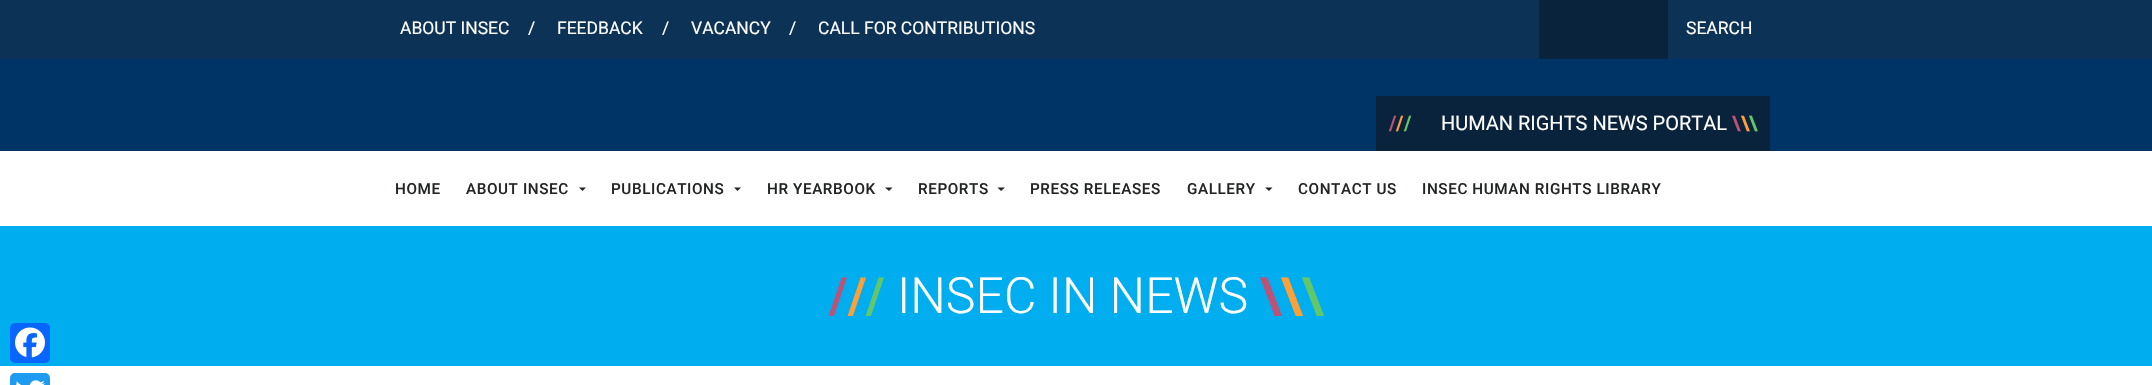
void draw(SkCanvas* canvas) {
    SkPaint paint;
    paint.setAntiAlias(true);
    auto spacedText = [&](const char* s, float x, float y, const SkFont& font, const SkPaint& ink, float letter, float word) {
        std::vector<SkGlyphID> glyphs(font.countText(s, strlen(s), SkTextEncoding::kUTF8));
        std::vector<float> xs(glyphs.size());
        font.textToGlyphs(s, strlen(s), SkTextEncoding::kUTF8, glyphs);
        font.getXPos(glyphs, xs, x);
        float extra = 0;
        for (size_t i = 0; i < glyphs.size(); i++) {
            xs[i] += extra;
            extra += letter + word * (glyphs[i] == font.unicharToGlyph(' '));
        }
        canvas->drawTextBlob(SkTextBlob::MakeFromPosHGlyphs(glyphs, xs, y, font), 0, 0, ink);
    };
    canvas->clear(0xFFFFFFFF);
    paint.setColor(0xFF003366);
    canvas->drawRect(SkRect::MakeXYWH(0, 59, 2152, 92), paint);
    paint.setColor(0xFF0C3255);
    canvas->drawRect(SkRect::MakeXYWH(0, 0, 2152, 59), paint);
    SkFont font1(fontMgr->matchFamilyStyle("Roboto", SkFontStyle::Normal()), 17.5f);
    font1.setSubpixel(true);
    paint.setColor(0xFFFFFFFF);
    canvas->drawString("ABOUT INSEC", 400, 34, font1, paint);
    canvas->drawString("/", 528, 34, font1, paint);
    canvas->drawString("FEEDBACK", 557, 34, font1, paint);
    canvas->drawString("/", 662, 34, font1, paint);
    canvas->drawString("VACANCY", 691, 34, font1, paint);
    canvas->drawString("/", 789, 34, font1, paint);
    canvas->drawString("CALL FOR CONTRIBUTIONS", 818, 34, font1, paint);
    paint.setColor(0xFF08233B);
    canvas->drawRect(SkRect::MakeXYWH(1539, 0, 129, 59), paint);
    paint.setColor(0xFFFFFFFF);
    canvas->drawString("SEARCH", 1686, 34, font1, paint);
    paint.setColor(0xFF08233B);
    canvas->drawRect(SkRect::MakeXYWH(1376, 96, 394, 55), paint);
    SkFont font2(fontMgr->matchFamilyStyle("Roboto", SkFontStyle::Bold()), 20);
    font2.setSubpixel(true);
    paint.setColor(0xFFBD5276);
    canvas->drawString("/", 1389, 130, font2, paint);
    paint.setColor(0xFFFFA037);
    canvas->drawString("/", 1396, 130, font2, paint);
    paint.setColor(0xFF63C76A);
    canvas->drawString("/", 1404, 130, font2, paint);
    SkFont font3(fontMgr->matchFamilyStyle("Roboto", SkFontStyle::Normal()), 20);
    font3.setSubpixel(true);
    paint.setColor(0xFFFFFFFF);
    canvas->drawString("HUMAN RIGHTS NEWS PORTAL", 1441, 130, font3, paint);
    paint.setColor(0xFFBD5276);
    canvas->drawString("\\", 1732, 130, font2, paint);
    paint.setColor(0xFFFFA037);
    canvas->drawString("\\", 1741, 130, font2, paint);
    paint.setColor(0xFF63C76A);
    canvas->drawString("\\", 1749, 130, font2, paint);
    SkFont font4(fontMgr->matchFamilyStyle("Roboto", SkFontStyle(500, SkFontStyle::kNormal_Width, SkFontStyle::kUpright_Slant)), 15.25f);
    font4.setSubpixel(true);
    paint.setColor(0xFF232525);
    spacedText("HOME", 395, 194, font4, paint, 0.6f, 0);
    spacedText("ABOUT INSEC", 466, 194, font4, paint, 0.6f, 0);
    canvas->drawPath(SkPathBuilder().moveTo(579, 187.5f).lineTo(586, 187.5f).lineTo(582.5f, 191).close().detach(), paint);
    spacedText("PUBLICATIONS", 611, 194, font4, paint, 0.6f, 0);
    canvas->drawPath(SkPathBuilder().moveTo(734, 187.5f).lineTo(741, 187.5f).lineTo(737.5f, 191).close().detach(), paint);
    spacedText("HR YEARBOOK", 767, 194, font4, paint, 0.6f, 0);
    canvas->drawPath(SkPathBuilder().moveTo(885, 187.5f).lineTo(892.5f, 187.5f).lineTo(889, 191).close().detach(), paint);
    spacedText("REPORTS", 918, 194, font4, paint, 0.6f, 0);
    canvas->drawPath(SkPathBuilder().moveTo(997.5f, 187.5f).lineTo(1005, 187.5f).lineTo(1001, 191).close().detach(), paint);
    spacedText("PRESS RELEASES", 1030, 194, font4, paint, 0.6f, 0);
    spacedText("GALLERY", 1187, 194, font4, paint, 0.6f, 0);
    canvas->drawPath(SkPathBuilder().moveTo(1265, 187.5f).lineTo(1272.5f, 187.5f).lineTo(1269, 191).close().detach(), paint);
    spacedText("CONTACT US", 1298, 194, font4, paint, 0.6f, 0);
    spacedText("INSEC HUMAN RIGHTS LIBRARY", 1422, 194, font4, paint, 0.6f, 0);
    paint.setColor(0xFF00AEEF);
    canvas->drawRect(SkRect::MakeXYWH(0, 226, 2152, 140), paint);
    SkFont font5(fontMgr->matchFamilyStyle("Roboto", SkFontStyle::Bold()), 50);
    font5.setSubpixel(true);
    paint.setColor(0xFFBD5276);
    canvas->drawString("/", 829, 313, font5, paint);
    paint.setColor(0xFFFFA037);
    canvas->drawString("/", 848, 313, font5, paint);
    paint.setColor(0xFF63C76A);
    canvas->drawString("/", 866, 313, font5, paint);
    SkFont font6(fontMgr->matchFamilyStyle("Roboto", SkFontStyle(300, SkFontStyle::kNormal_Width, SkFontStyle::kUpright_Slant)), 50);
    font6.setSubpixel(true);
    paint.setColor(0xFFFFFFFF);
    canvas->drawString("INSEC IN NEWS", 897, 313, font6, paint);
    paint.setColor(0xFFBD5276);
    canvas->drawString("\\", 1260, 313, font5, paint);
    paint.setColor(0xFFFFA037);
    canvas->drawString("\\", 1281, 313, font5, paint);
    paint.setColor(0xFF63C76A);
    canvas->drawString("\\", 1302, 313, font5, paint);
    paint.setColor(0xFF0866FF);
    canvas->drawRoundRect(SkRect::MakeXYWH(10, 323, 40, 40), 5, 5, paint);
    canvas->drawImageRect(SkImages::DeferredFromEncodedData(SkData::MakeFromFileName("img1.png")), SkRect::MakeXYWH(15, 327, 30, 31), SkSamplingOptions());
    paint.setColor(0xFF1D9BF0);
    canvas->drawRoundRect(SkRect::MakeXYWH(10, 373, 40, 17), 5, 5, paint);
    canvas->drawImageRect(SkImages::DeferredFromEncodedData(SkData::MakeFromFileName("img2.png")), SkRect::MakeXYWH(16, 380, 29, 5), SkSamplingOptions());
}
